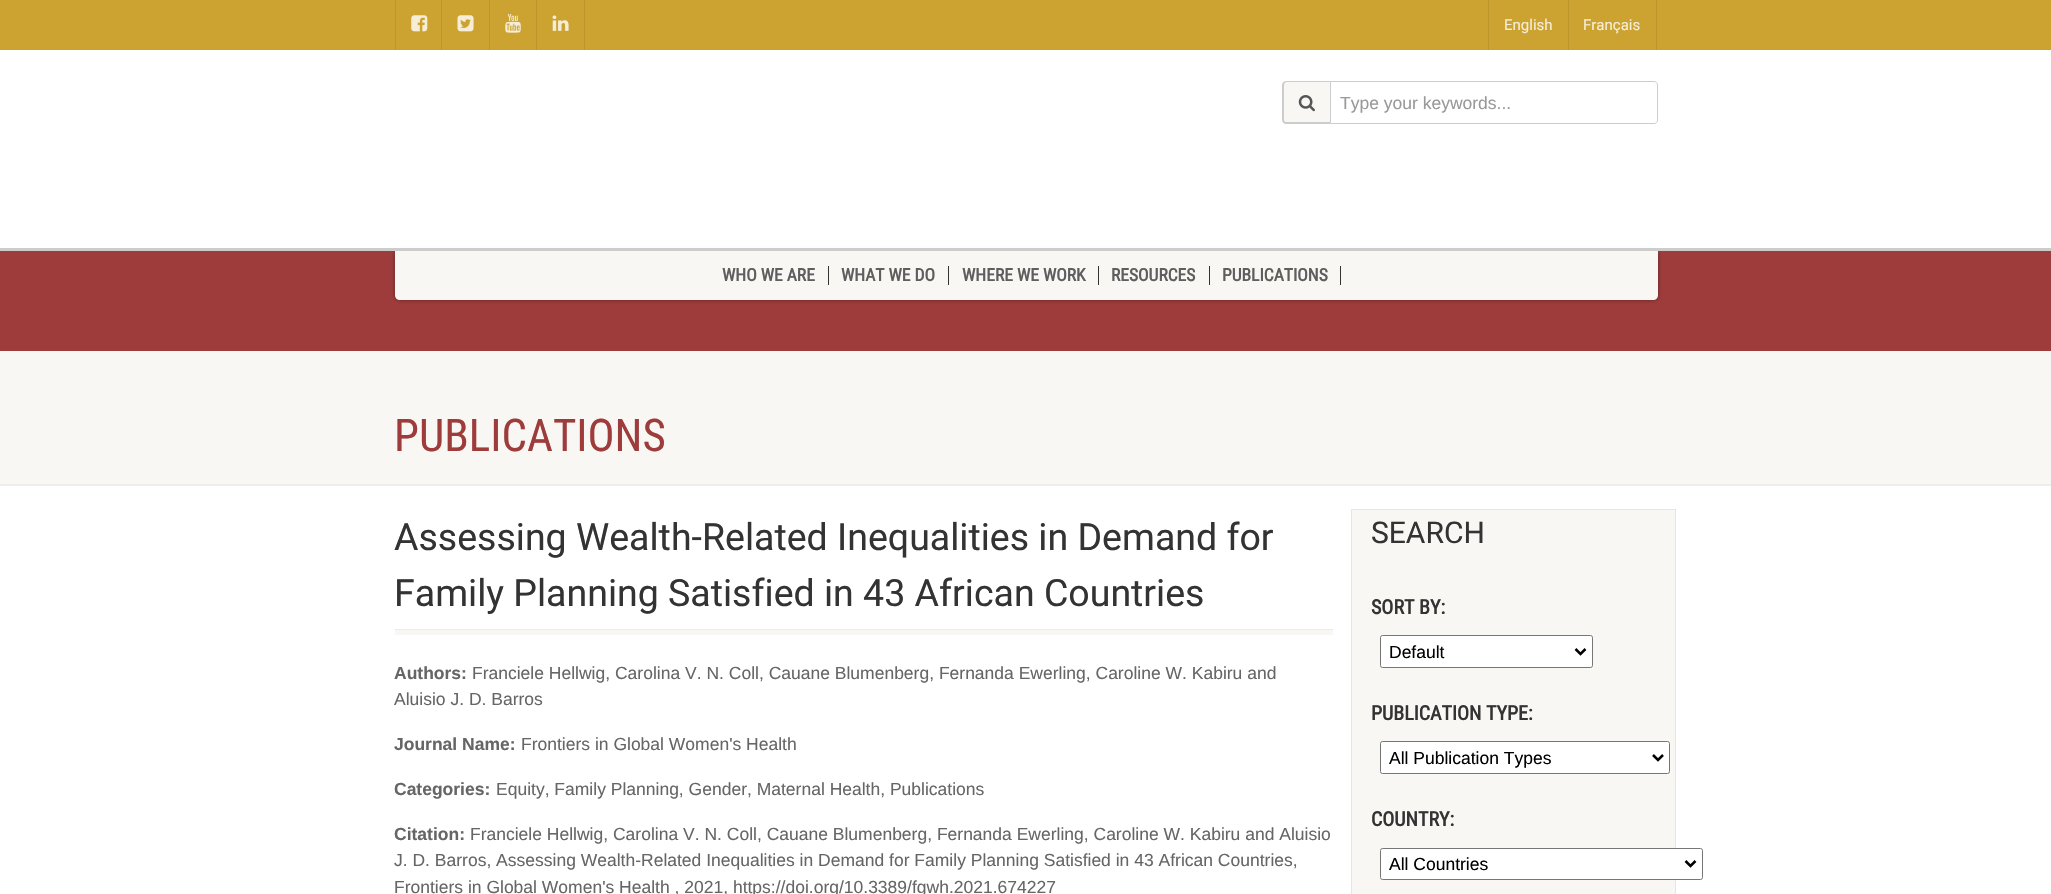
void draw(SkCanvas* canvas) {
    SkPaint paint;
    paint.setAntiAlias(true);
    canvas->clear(0xFFFFFFFF);
    paint.setColor(0xFFCCA330);
    canvas->drawRect(SkRect::MakeXYWH(0, 0, 2051, 50), paint);
    paint.setColor(0xFFBC962C);
    canvas->drawRect(SkRect::MakeXYWH(441, 0, 1, 50), paint);
    canvas->drawRect(SkRect::MakeXYWH(395, 0, 1, 50), paint);
    canvas->drawImageRect(SkImages::DeferredFromEncodedData(SkData::MakeFromFileName("img1.png")), SkRect::MakeXYWH(411, 15, 17, 17), SkSamplingOptions());
    canvas->drawRect(SkRect::MakeXYWH(489, 0, 1, 50), paint);
    canvas->drawImageRect(SkImages::DeferredFromEncodedData(SkData::MakeFromFileName("img2.png")), SkRect::MakeXYWH(457, 15, 17, 17), SkSamplingOptions());
    canvas->drawRect(SkRect::MakeXYWH(536, 0, 1, 50), paint);
    canvas->drawImageRect(SkImages::DeferredFromEncodedData(SkData::MakeFromFileName("img3.png")), SkRect::MakeXYWH(505, 13, 16, 20), SkSamplingOptions());
    canvas->drawRect(SkRect::MakeXYWH(584, 0, 1, 50), paint);
    canvas->drawImageRect(SkImages::DeferredFromEncodedData(SkData::MakeFromFileName("img4.png")), SkRect::MakeXYWH(552, 15, 17, 16), SkSamplingOptions());
    canvas->drawRect(SkRect::MakeXYWH(1568, 0, 1, 50), paint);
    canvas->drawRect(SkRect::MakeXYWH(1488, 0, 1, 50), paint);
    SkFont font1(fontMgr->matchFamilyStyle("Roboto", SkFontStyle::Normal()), 15);
    font1.setSubpixel(true);
    paint.setColor(0xFFF5EDD6);
    canvas->drawString("English", 1504, 30, font1, paint);
    paint.setColor(0xFFBC962C);
    canvas->drawRect(SkRect::MakeXYWH(1656, 0, 1, 50), paint);
    paint.setColor(0xFFF5EDD6);
    canvas->drawString("Français", 1583, 30, font1, paint);
    paint.setColor(0xFF9E3C3C);
    canvas->drawRect(SkRect::MakeXYWH(0, 251, 2051, 100), paint);
    paint.setColor(0x66000000);
    paint.setMaskFilter(SkMaskFilter::MakeBlur(kNormal_SkBlurStyle, 2));
    canvas->drawRoundRect(SkRect::MakeXYWH(395, 250, 1263, 50), 5, 5, paint);
    paint.setMaskFilter(nullptr);
    paint.setColor(0xCCFFFFFF);
    canvas->drawRect(SkRect::MakeXYWH(396, 246, 1261, 2), paint);
    paint.setColor(0xFFF8F7F3);
    canvas->drawPath(SkPathBuilder().moveTo(395, 250).lineTo(1658, 250).lineTo(1658, 295).cubicTo(1658, 298, 1656, 300, 1653, 300).lineTo(400, 300).cubicTo(397, 300, 395, 298, 395, 295).close().detach(), paint);
    paint.setColor(0xFFCCCCCC);
    canvas->drawRect(SkRect::MakeXYWH(0, 248, 2051, 3), paint);
    paint.setColor(0xFFF8F7F3);
    canvas->drawPath(SkPathBuilder().moveTo(1287, 81).lineTo(1330, 81).lineTo(1330, 124).lineTo(1287, 124).cubicTo(1285, 124, 1283, 122, 1283, 120).lineTo(1283, 85).cubicTo(1283, 83, 1285, 81, 1287, 81).close().detach(), paint);
    paint.setColor(0xFFCCCCCC);
    canvas->drawPath(SkPathBuilder(SkPathFillType::kEvenOdd).moveTo(1286, 81).lineTo(1330, 81).lineTo(1330, 124).lineTo(1286, 124).cubicTo(1284, 124, 1282, 122, 1282, 120).lineTo(1282, 85).cubicTo(1282, 83, 1284, 81, 1286, 81).close().moveTo(1286, 82).lineTo(1330, 82).lineTo(1330, 122).lineTo(1286, 122).cubicTo(1285, 122, 1284, 121, 1284, 120).lineTo(1284, 85).cubicTo(1284, 84, 1285, 82, 1286, 82).close().detach(), paint);
    canvas->drawImageRect(SkImages::DeferredFromEncodedData(SkData::MakeFromFileName("img5.png")), SkRect::MakeXYWH(1298, 95, 17, 17), SkSamplingOptions());
    paint.setStyle(SkPaint::kStroke_Style);
    paint.setStrokeWidth(1);
    canvas->drawPath(SkPathBuilder().moveTo(1330.5f, 81.5f).lineTo(1654, 81.5f).cubicTo(1656, 81.5f, 1657.5f, 83, 1657.5f, 85).lineTo(1657.5f, 120).cubicTo(1657.5f, 122, 1656, 123.5f, 1654, 123.5f).lineTo(1330.5f, 123.5f).close().detach(), paint);
    SkFont font2(fontMgr->matchFamilyStyle("Liberation Sans", SkFontStyle::Normal()), 17.5f);
    font2.setSubpixel(true);
    paint.setStyle(SkPaint::kFill_Style);
    paint.setColor(0xFF999999);
    canvas->drawString("Type your keywords...", 1340, 109, font2, paint);
    paint.setColor(0xFF333333);
    canvas->drawRect(SkRect::MakeXYWH(828, 266, 1, 19), paint);
    SkFont font3(fontMgr->matchFamilyStyle("Roboto Condensed", SkFontStyle::Bold()), 17.5f);
    font3.setSubpixel(true);
    paint.setColor(0xFF5E5E5E);
    canvas->drawString("WHO WE ARE", 722, 281, font3, paint);
    paint.setColor(0xFF333333);
    canvas->drawRect(SkRect::MakeXYWH(948, 266, 1, 19), paint);
    paint.setColor(0xFF5E5E5E);
    canvas->drawString("WHAT WE DO", 841, 281, font3, paint);
    paint.setColor(0xFF333333);
    canvas->drawRect(SkRect::MakeXYWH(1098, 266, 1, 19), paint);
    paint.setColor(0xFF5E5E5E);
    canvas->drawString("WHERE WE WORK", 962, 281, font3, paint);
    paint.setColor(0xFF333333);
    canvas->drawRect(SkRect::MakeXYWH(1209, 266, 1, 19), paint);
    paint.setColor(0xFF5E5E5E);
    canvas->drawString("RESOURCES", 1111, 281, font3, paint);
    paint.setColor(0xFF333333);
    canvas->drawRect(SkRect::MakeXYWH(1340, 266, 1, 19), paint);
    paint.setColor(0xFF5E5E5E);
    canvas->drawString("PUBLICATIONS", 1222, 281, font3, paint);
    paint.setColor(0xFFEDEDED);
    canvas->drawRect(SkRect::MakeXYWH(0, 484, 2051, 2), paint);
    paint.setColor(0xFFF8F7F3);
    canvas->drawRect(SkRect::MakeXYWH(0, 351, 2051, 133), paint);
    SkFont font4(fontMgr->matchFamilyStyle("Roboto Condensed", SkFontStyle::Normal()), 45);
    font4.setSubpixel(true);
    paint.setColor(0xFF9E3C3C);
    canvas->drawString("PUBLICATIONS", 394, 451, font4, paint);
    paint.setColor(0xFFECEAE4);
    canvas->drawRect(SkRect::MakeXYWH(395, 629, 938, 1), paint);
    SkFont font5(fontMgr->matchFamilyStyle("Roboto", SkFontStyle::Normal()), 37.5f);
    font5.setSubpixel(true);
    paint.setColor(0xFF333333);
    canvas->drawString("Assessing Wealth-Related Inequalities in Demand for", 394, 550, font5, paint);
    canvas->drawString("Family Planning Satisfied in 43 African Countries", 394, 606, font5, paint);
    paint.setColor(0xFFF8F7F3);
    canvas->drawRect(SkRect::MakeXYWH(395, 630, 938, 5), paint);
    SkFont font6(fontMgr->matchFamilyStyle("Liberation Sans", SkFontStyle::Bold()), 17.5f);
    font6.setSubpixel(true);
    paint.setColor(0xFF666666);
    canvas->drawString("Authors:", 394, 679, font6, paint);
    canvas->drawString("Franciele Hellwig, Carolina V. N. Coll, Cauane Blumenberg, Fernanda Ewerling, Caroline W. Kabiru and", 472, 679, font2, paint);
    canvas->drawString("Aluisio J. D. Barros", 394, 705, font2, paint);
    canvas->drawString("Journal Name:", 394, 750, font6, paint);
    canvas->drawString("Frontiers in Global Women's Health", 521, 750, font2, paint);
    canvas->drawString("Categories:", 394, 795, font6, paint);
    canvas->drawString("Equity, Family Planning, Gender, Maternal Health, Publications", 496, 795, font2, paint);
    canvas->drawString("Citation:", 394, 840, font6, paint);
    canvas->drawString("Franciele Hellwig, Carolina V. N. Coll, Cauane Blumenberg, Fernanda Ewerling, Caroline W. Kabiru and Aluisio", 470, 840, font2, paint);
    canvas->drawString("J. D. Barros, Assessing Wealth-Related Inequalities in Demand for Family Planning Satisfied in 43 African Countries,", 394, 866, font2, paint);
    canvas->drawString("Frontiers in Global Women's Health , 2021, https://doi.org/10.3389/fgwh.2021.674227", 394, 893, font2, paint);
    paint.setColor(0xFFF8F7F3);
    canvas->drawRect(SkRect::MakeXYWH(1351.5f, 509.5f, 324, 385), paint);
    paint.setStyle(SkPaint::kStroke_Style);
    paint.setColor(0xFFE7E6E2);
    canvas->drawRect(SkRect::MakeXYWH(1351.5f, 509.5f, 324, 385), paint);
    SkFont font7(fontMgr->matchFamilyStyle("Roboto", SkFontStyle::Normal()), 30);
    font7.setSubpixel(true);
    paint.setStyle(SkPaint::kFill_Style);
    paint.setColor(0xFF333333);
    canvas->drawString("SEARCH", 1371, 543, font7, paint);
    SkFont font8(fontMgr->matchFamilyStyle("Roboto Condensed", SkFontStyle::Bold()), 20);
    font8.setSubpixel(true);
    canvas->drawString("SORT BY:", 1371, 614, font8, paint);
    paint.setColor(0xFFFFFFFF);
    canvas->drawRoundRect(SkRect::MakeXYWH(1380.5f, 635.5f, 212, 32), 2, 2, paint);
    paint.setStyle(SkPaint::kStroke_Style);
    paint.setColor(0xFF767676);
    canvas->drawRoundRect(SkRect::MakeXYWH(1380.5f, 635.5f, 212, 32), 2, 2, paint);
    paint.setStrokeWidth(2.5f);
    paint.setColor(0xFF000000);
    canvas->drawPath(SkPathBuilder().moveTo(1575.5f, 649).lineTo(1580.5f, 654).lineTo(1585.5f, 649).detach(), paint);
    paint.setStyle(SkPaint::kFill_Style);
    canvas->drawString("Default", 1389, 658, font2, paint);
    paint.setColor(0xFF333333);
    canvas->drawString("PUBLICATION TYPE:", 1371, 720, font8, paint);
    paint.setColor(0xFFFFFFFF);
    canvas->drawRoundRect(SkRect::MakeXYWH(1380.5f, 741.5f, 289, 32), 2, 2, paint);
    paint.setStyle(SkPaint::kStroke_Style);
    paint.setStrokeWidth(1);
    paint.setColor(0xFF767676);
    canvas->drawRoundRect(SkRect::MakeXYWH(1380.5f, 741.5f, 289, 32), 2, 2, paint);
    paint.setStrokeWidth(2.5f);
    paint.setColor(0xFF000000);
    canvas->drawPath(SkPathBuilder().moveTo(1653, 755).lineTo(1658, 760).lineTo(1663, 755).detach(), paint);
    paint.setStyle(SkPaint::kFill_Style);
    canvas->drawString("All Publication Types", 1389, 764, font2, paint);
    paint.setColor(0xFF333333);
    canvas->drawString("COUNTRY:", 1371, 826, font8, paint);
    paint.setColor(0xFFFFFFFF);
    canvas->drawRoundRect(SkRect::MakeXYWH(1380.5f, 848.5f, 322, 31), 2, 2, paint);
    paint.setStyle(SkPaint::kStroke_Style);
    paint.setStrokeWidth(1);
    paint.setColor(0xFF767676);
    canvas->drawRoundRect(SkRect::MakeXYWH(1380.5f, 848.5f, 322, 31), 2, 2, paint);
    paint.setStrokeWidth(2.5f);
    paint.setColor(0xFF000000);
    canvas->drawPath(SkPathBuilder().moveTo(1685.5f, 861).lineTo(1690.5f, 866).lineTo(1695.5f, 861).detach(), paint);
    paint.setStyle(SkPaint::kFill_Style);
    canvas->drawString("All Countries", 1389, 870, font2, paint);
}
